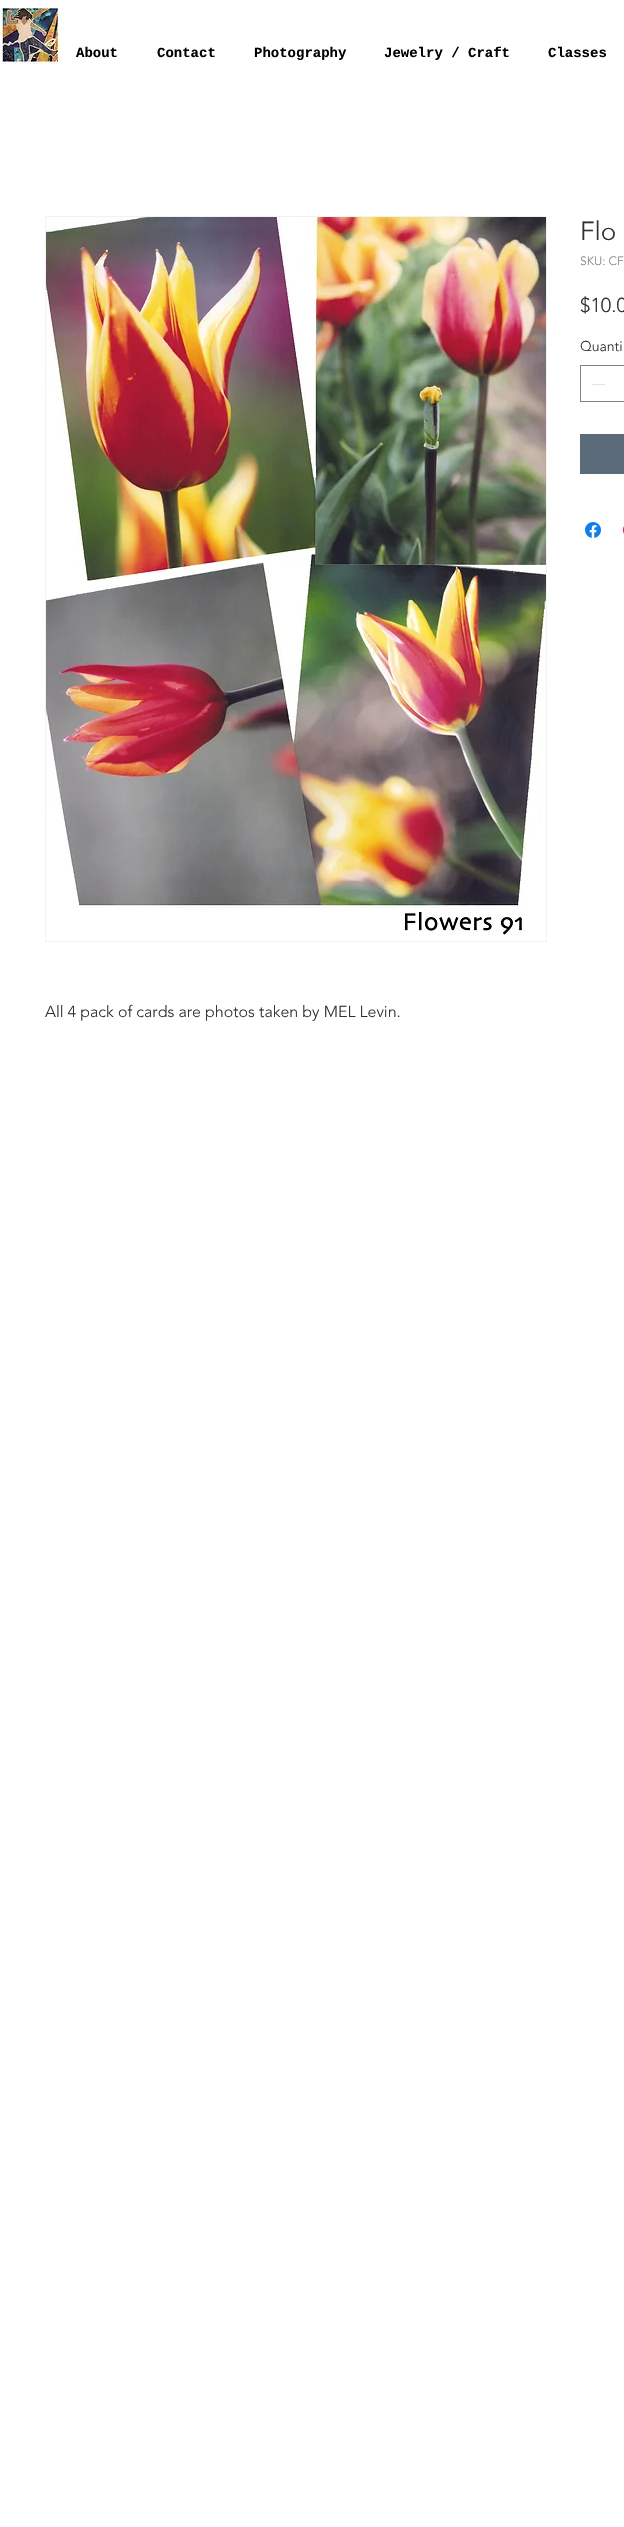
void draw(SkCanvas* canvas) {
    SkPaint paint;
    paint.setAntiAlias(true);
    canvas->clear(0xFFFFFFFF);
    canvas->drawImageRect(SkImages::DeferredFromEncodedData(SkData::MakeFromFileName("img1.png")), SkRect::MakeXYWH(0, 7, 61, 57), SkSamplingOptions());
    SkFont font1(fontMgr->matchFamilyStyle("Liberation Mono", SkFontStyle::Bold()), 14);
    font1.setSubpixel(true);
    paint.setColor(0xFF000000);
    canvas->drawString("About", 76, 57, font1, paint);
    canvas->drawString("Contact", 157, 57, font1, paint);
    canvas->drawString("Photography", 254, 57, font1, paint);
    canvas->drawString("Jewelry / Craft", 384, 57, font1, paint);
    canvas->drawString("Classes", 548, 57, font1, paint);
    SkFont font2(fontMgr->matchFamilyStyle("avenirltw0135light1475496", SkFontStyle(300, SkFontStyle::kNormal_Width, SkFontStyle::kUpright_Slant)), 26);
    font2.setSubpixel(true);
    paint.setColor(0xFF303131);
    canvas->drawString("Flo", 580, 240, font2, paint);
    SkFont font3(fontMgr->matchFamilyStyle("avenirltw0135light1475496", SkFontStyle(300, SkFontStyle::kNormal_Width, SkFontStyle::kUpright_Slant)), 12);
    font3.setSubpixel(true);
    paint.setColor(0xFF858585);
    canvas->drawString("SKU: CF", 580, 265, font3, paint);
    SkFont font4(fontMgr->matchFamilyStyle("avenirltw0135light1475496", SkFontStyle(300, SkFontStyle::kNormal_Width, SkFontStyle::kUpright_Slant)), 20);
    font4.setSubpixel(true);
    paint.setColor(0xFF303131);
    canvas->drawString("$10.0", 580, 312, font4, paint);
    SkFont font5(fontMgr->matchFamilyStyle("avenirltw0135light1475496", SkFontStyle(300, SkFontStyle::kNormal_Width, SkFontStyle::kUpright_Slant)), 14);
    font5.setSubpixel(true);
    canvas->drawString("Quanti", 580, 351, font5, paint);
    paint.setStyle(SkPaint::kStroke_Style);
    paint.setStrokeWidth(1);
    paint.setColor(0xFF838383);
    canvas->drawRect(SkRect::MakeXYWH(580.5f, 365.5f, 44, 36), paint);
    paint.setStyle(SkPaint::kFill_Style);
    paint.setColor(0xFFE3E3E3);
    canvas->drawRect(SkRect::MakeXYWH(592, 384, 13, 1), paint);
    paint.setColor(0xFF5C6B7A);
    canvas->drawRect(SkRect::MakeXYWH(580, 434, 44, 40), paint);
    canvas->drawImageRect(SkImages::DeferredFromEncodedData(SkData::MakeFromFileName("img2.png")), SkRect::MakeXYWH(585, 522, 16, 16), SkSamplingOptions());
    canvas->drawImageRect(SkImages::DeferredFromEncodedData(SkData::MakeFromFileName("img3.png")), SkRect::MakeXYWH(623, 526, 1, 8), SkSamplingOptions());
    paint.setStyle(SkPaint::kStroke_Style);
    paint.setColor(0xFFF0F3F6);
    canvas->drawRect(SkRect::MakeXYWH(45.5f, 216.5f, 501, 725), paint);
    canvas->drawImageRect(SkImages::DeferredFromEncodedData(SkData::MakeFromFileName("img4.png")), SkRect::MakeXYWH(46, 217, 500, 718), SkSamplingOptions());
    SkFont font6(fontMgr->matchFamilyStyle("avenirltw0135light1475496", SkFontStyle(300, SkFontStyle::kNormal_Width, SkFontStyle::kUpright_Slant)), 16);
    font6.setSubpixel(true);
    paint.setStyle(SkPaint::kFill_Style);
    paint.setColor(0xFF303131);
    canvas->drawString("All 4 pack of cards are photos taken by MEL Levin.", 45, 1017, font6, paint);
}
